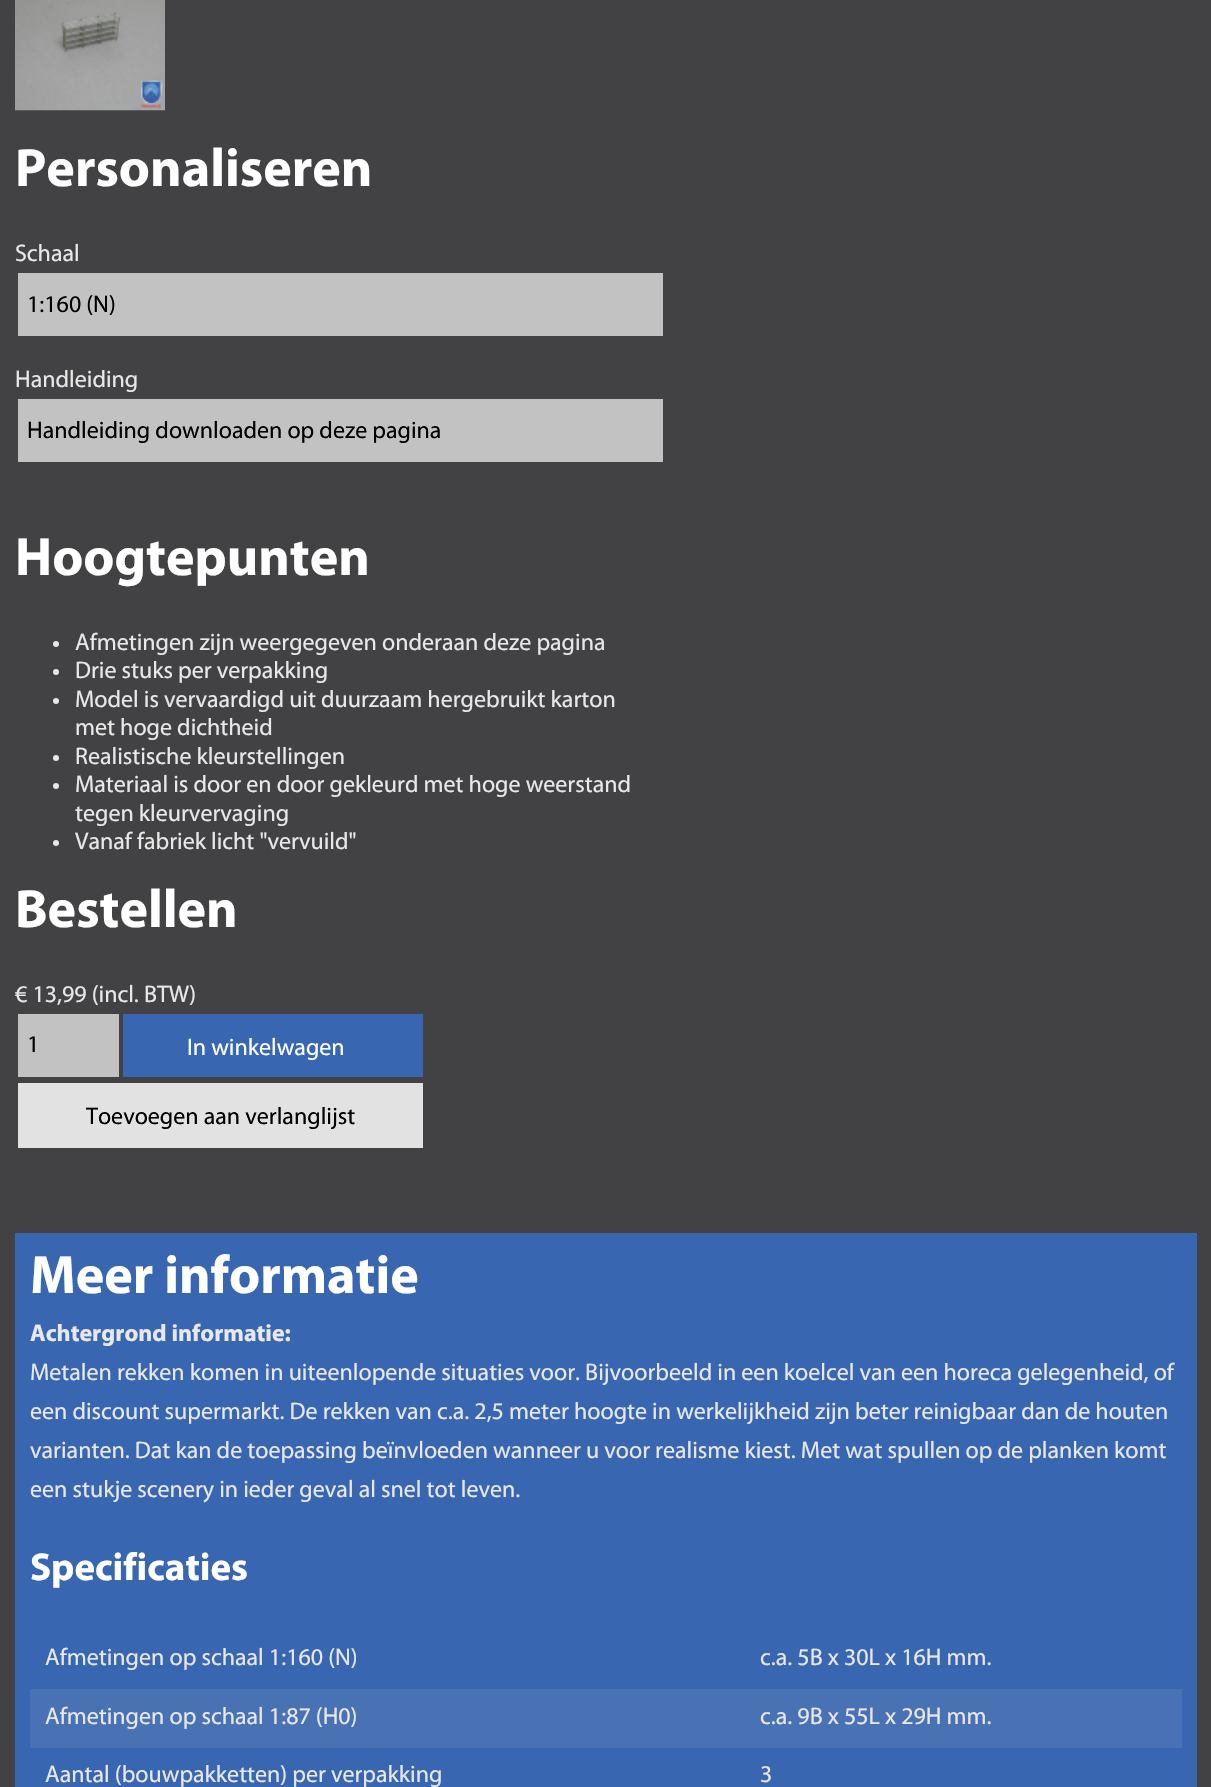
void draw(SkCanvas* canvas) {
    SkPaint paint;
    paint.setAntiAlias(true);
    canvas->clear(0xFF424244);
    canvas->drawImageRect(SkImages::DeferredFromEncodedData(SkData::MakeFromFileName("img1.png")), SkRect::MakeXYWH(15, 0, 150, 111), SkSamplingOptions());
    SkFont font1(fontMgr->matchFamilyStyle("Myriad", SkFontStyle::Bold()), 54);
    font1.setSubpixel(true);
    paint.setColor(0xFFFFFFFF);
    canvas->drawString("Personaliseren", 15, 186, font1, paint);
    SkFont font2(fontMgr->matchFamilyStyle("Myriad", SkFontStyle::Normal()), 24);
    font2.setSubpixel(true);
    paint.setColor(0xFFE8E8E8);
    canvas->drawString("Schaal", 15, 261, font2, paint);
    paint.setColor(0xFFC2C2C2);
    canvas->drawRect(SkRect::MakeXYWH(18, 273, 645, 63), paint);
    paint.setColor(0xFF000000);
    canvas->drawString("1:160 (N)", 27, 312, font2, paint);
    paint.setColor(0xFFE8E8E8);
    canvas->drawString("Handleiding", 15, 387, font2, paint);
    paint.setColor(0xFFC2C2C2);
    canvas->drawRect(SkRect::MakeXYWH(18, 399, 645, 63), paint);
    paint.setColor(0xFF000000);
    canvas->drawString("Handleiding downloaden op deze pagina", 27, 438, font2, paint);
    paint.setColor(0xFFFFFFFF);
    canvas->drawString("Hoogtepunten", 15, 575, font1, paint);
    paint.setColor(0xFFE8E8E8);
    canvas->drawCircle(56, 644, 3, paint);
    canvas->drawString("Afmetingen zijn weergegeven onderaan deze pagina", 75, 650, font2, paint);
    canvas->drawCircle(56, 672, 3, paint);
    canvas->drawString("Drie stuks per verpakking", 75, 678, font2, paint);
    canvas->drawCircle(56, 701, 3, paint);
    canvas->drawString("Model is vervaardigd uit duurzaam hergebruikt karton", 75, 707, font2, paint);
    canvas->drawString("met hoge dichtheid", 75, 735, font2, paint);
    canvas->drawCircle(56, 758, 3, paint);
    canvas->drawString("Realistische kleurstellingen", 75, 764, font2, paint);
    canvas->drawCircle(56, 786, 3, paint);
    canvas->drawString("Materiaal is door en door gekleurd met hoge weerstand", 75, 792, font2, paint);
    canvas->drawString("tegen kleurvervaging", 75, 821, font2, paint);
    canvas->drawCircle(56, 843, 3, paint);
    canvas->drawString("Vanaf fabriek licht \"vervuild\"", 75, 849, font2, paint);
    paint.setColor(0xFFFFFFFF);
    canvas->drawString("Bestellen", 15, 927, font1, paint);
    paint.setColor(0xFFE8E8E8);
    canvas->drawString("€ 13,99 (incl. BTW)", 15, 1002, font2, paint);
    paint.setColor(0xFFC2C2C2);
    canvas->drawRect(SkRect::MakeXYWH(18, 1014, 101, 63), paint);
    paint.setColor(0xFF000000);
    canvas->drawString("1", 27, 1052, font2, paint);
    paint.setColor(0xFF3866B0);
    canvas->drawRect(SkRect::MakeXYWH(123, 1014, 300, 63), paint);
    paint.setColor(0xFFFFFFFF);
    canvas->drawString("In winkelwagen", 187, 1055, font2, paint);
    paint.setColor(0xFFE2E2E2);
    canvas->drawRect(SkRect::MakeXYWH(18, 1083, 405, 65), paint);
    paint.setColor(0xFF000000);
    canvas->drawString("Toevoegen aan verlanglijst", 86, 1124, font2, paint);
    paint.setColor(0xFF3866B0);
    canvas->drawRect(SkRect::MakeXYWH(15, 1233, 1182, 554), paint);
    paint.setColor(0xFFFFFFFF);
    canvas->drawString("Meer informatie", 30, 1293, font1, paint);
    SkFont font3(fontMgr->matchFamilyStyle("Myriad", SkFontStyle::Bold()), 24);
    font3.setSubpixel(true);
    paint.setColor(0xFFE8E8E8);
    canvas->drawString("Achtergrond informatie:", 30, 1341, font3, paint);
    canvas->drawString("Metalen rekken komen in uiteenlopende situaties voor. Bijvoorbeeld in een koelcel van een horeca gelegenheid, of", 30, 1380, font2, paint);
    canvas->drawString("een discount supermarkt. De rekken van c.a. 2,5 meter hoogte in werkelijkheid zijn beter reinigbaar dan de houten", 30, 1419, font2, paint);
    canvas->drawString("varianten. Dat kan de toepassing beïnvloeden wanneer u voor realisme kiest. Met wat spullen op de planken komt", 30, 1458, font2, paint);
    canvas->drawString("een stukje scenery in ieder geval al snel tot leven.", 30, 1497, font2, paint);
    SkFont font4(fontMgr->matchFamilyStyle("Myriad", SkFontStyle::Bold()), 39);
    font4.setSubpixel(true);
    paint.setColor(0xFFFFFFFF);
    canvas->drawString("Specificaties", 30, 1580, font4, paint);
    paint.setColor(0xFFE8E8E8);
    canvas->drawString("Afmetingen op schaal 1:160 (N)", 45, 1665, font2, paint);
    canvas->drawString("c.a. 5B x 30L x 16H mm.", 760, 1665, font2, paint);
    paint.setColor(0xFF4972B5);
    canvas->drawRect(SkRect::MakeXYWH(30, 1689, 1152, 59), paint);
    paint.setColor(0xFFE8E8E8);
    canvas->drawString("Afmetingen op schaal 1:87 (H0)", 45, 1724, font2, paint);
    canvas->drawString("c.a. 9B x 55L x 29H mm.", 760, 1724, font2, paint);
    canvas->drawString("Aantal (bouwpakketten) per verpakking", 45, 1782, font2, paint);
    canvas->drawString("3", 760, 1782, font2, paint);
}
